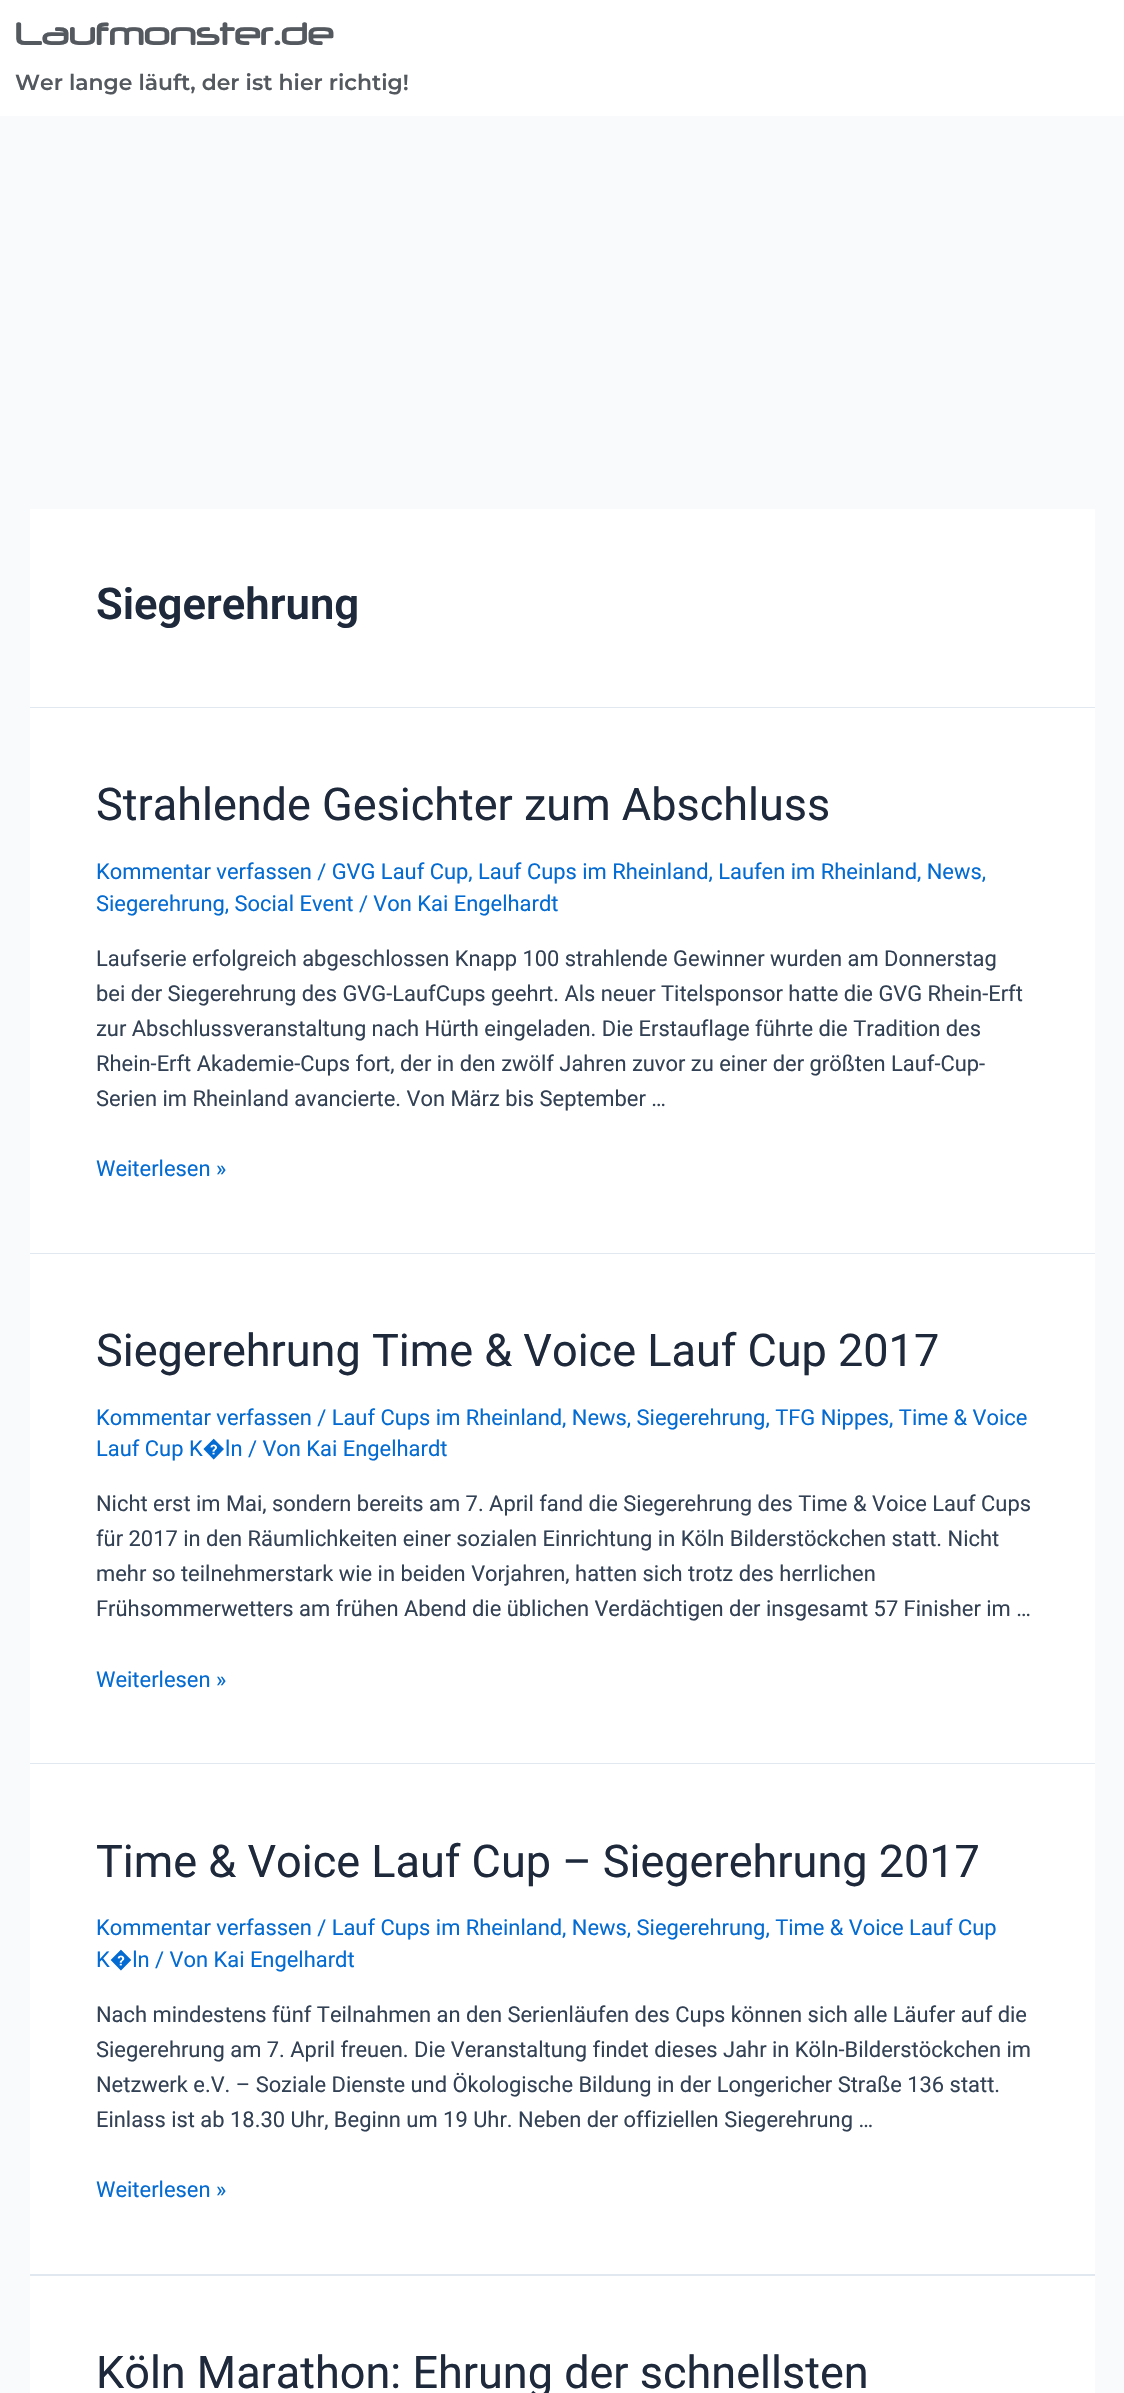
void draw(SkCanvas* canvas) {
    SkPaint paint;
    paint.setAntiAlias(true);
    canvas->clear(0xFFF9FAFB);
    paint.setColor(0xFFFFFFFF);
    canvas->drawRect(SkRect::MakeXYWH(0, 0, 1124, 116), paint);
    SkFont font1(fontMgr->matchFamilyStyle("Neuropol", SkFontStyle::Bold()), 30);
    font1.setSubpixel(true);
    paint.setColor(0xFF54595F);
    canvas->drawString("Laufmonster.de", 15, 45, font1, paint);
    SkFont font2(fontMgr->matchFamilyStyle("Montserrat", SkFontStyle(600, SkFontStyle::kNormal_Width, SkFontStyle::kUpright_Slant)), 21.9f);
    font2.setSubpixel(true);
    canvas->drawString("Wer lange läuft, der ist hier richtig!", 15, 90, font2, paint);
    paint.setColor(0xFFFFFFFF);
    canvas->drawRect(SkRect::MakeXYWH(30, 509, 1065, 198), paint);
    paint.setColor(0xFFE2E8F0);
    canvas->drawRect(SkRect::MakeXYWH(30, 707, 1065, 1), paint);
    SkFont font3(fontMgr->matchFamilyStyle("Roboto", SkFontStyle(600, SkFontStyle::kNormal_Width, SkFontStyle::kUpright_Slant)), 43.75f);
    font3.setSubpixel(true);
    paint.setColor(0xFF1E293B);
    canvas->drawString("Siegerehrung", 96, 619, font3, paint);
    paint.setColor(0xFFFFFFFF);
    canvas->drawRect(SkRect::MakeXYWH(30, 708, 1065, 545), paint);
    paint.setColor(0xFFE2E8F0);
    canvas->drawRect(SkRect::MakeXYWH(30, 1253, 1065, 1), paint);
    SkFont font4(fontMgr->matchFamilyStyle("Roboto", SkFontStyle::Normal()), 45);
    font4.setSubpixel(true);
    paint.setColor(0xFF1E293B);
    canvas->drawString("Strahlende Gesichter zum Abschluss", 96, 820, font4, paint);
    SkFont font5(fontMgr->matchFamilyStyle("Roboto", SkFontStyle::Normal()), 21.9f);
    font5.setSubpixel(true);
    paint.setColor(0xFF046BD2);
    canvas->drawString("Kommentar verfassen / GVG Lauf Cup, Lauf Cups im Rheinland, Laufen im Rheinland, News,", 96, 879, font5, paint);
    canvas->drawString("Siegerehrung, Social Event / Von Kai Engelhardt", 96, 911, font5, paint);
    paint.setColor(0xFF334155);
    canvas->drawString("Laufserie erfolgreich abgeschlossen Knapp 100 strahlende Gewinner wurden am Donnerstag", 96, 966, font5, paint);
    canvas->drawString("bei der Siegerehrung des GVG-LaufCups geehrt. Als neuer Titelsponsor hatte die GVG Rhein-Erft", 96, 1001, font5, paint);
    canvas->drawString("zur Abschlussveranstaltung nach Hürth eingeladen. Die Erstauflage führte die Tradition des", 96, 1036, font5, paint);
    canvas->drawString("Rhein-Erft Akademie-Cups fort, der in den zwölf Jahren zuvor zu einer der größten Lauf-Cup-", 96, 1071, font5, paint);
    canvas->drawString("Serien im Rheinland avancierte. Von März bis September …", 96, 1106, font5, paint);
    paint.setColor(0xFF046BD2);
    canvas->drawString("Weiterlesen »", 96, 1176, font5, paint);
    paint.setColor(0xFFFFFFFF);
    canvas->drawRect(SkRect::MakeXYWH(30, 1254, 1065, 509), paint);
    paint.setColor(0xFFE2E8F0);
    canvas->drawRect(SkRect::MakeXYWH(30, 1763, 1065, 1), paint);
    paint.setColor(0xFF1E293B);
    canvas->drawString("Siegerehrung Time & Voice Lauf Cup 2017", 96, 1366, font4, paint);
    paint.setColor(0xFF046BD2);
    canvas->drawString("Kommentar verfassen / Lauf Cups im Rheinland, News, Siegerehrung, TFG Nippes, Time & Voice", 96, 1425, font5, paint);
    canvas->drawString("Lauf Cup K�ln / Von Kai Engelhardt", 96, 1456, font5, paint);
    paint.setColor(0xFF334155);
    canvas->drawString("Nicht erst im Mai, sondern bereits am 7. April fand die Siegerehrung des Time & Voice Lauf Cups", 96, 1511, font5, paint);
    canvas->drawString("für 2017 in den Räumlichkeiten einer sozialen Einrichtung in Köln Bilderstöckchen statt. Nicht", 96, 1546, font5, paint);
    canvas->drawString("mehr so teilnehmerstark wie in beiden Vorjahren, hatten sich trotz des herrlichen", 96, 1581, font5, paint);
    canvas->drawString("Frühsommerwetters am frühen Abend die üblichen Verdächtigen der insgesamt 57 Finisher im …", 96, 1616, font5, paint);
    paint.setColor(0xFF046BD2);
    canvas->drawString("Weiterlesen »", 96, 1687, font5, paint);
    paint.setColor(0xFFFFFFFF);
    canvas->drawRect(SkRect::MakeXYWH(30, 1764, 1065, 510), paint);
    paint.setColor(0xFFE2E8F0);
    canvas->drawRect(SkRect::MakeXYWH(30, 2274, 1065, 2), paint);
    paint.setColor(0xFF1E293B);
    canvas->drawString("Time & Voice Lauf Cup – Siegerehrung 2017", 96, 1877, font4, paint);
    paint.setColor(0xFF046BD2);
    canvas->drawString("Kommentar verfassen / Lauf Cups im Rheinland, News, Siegerehrung, Time & Voice Lauf Cup", 96, 1935, font5, paint);
    canvas->drawString("K�ln / Von Kai Engelhardt", 96, 1967, font5, paint);
    paint.setColor(0xFF334155);
    canvas->drawString("Nach mindestens fünf Teilnahmen an den Serienläufen des Cups können sich alle Läufer auf die", 96, 2022, font5, paint);
    canvas->drawString("Siegerehrung am 7. April freuen. Die Veranstaltung findet dieses Jahr in Köln-Bilderstöckchen im", 96, 2057, font5, paint);
    canvas->drawString("Netzwerk e.V. – Soziale Dienste und Ökologische Bildung in der Longericher Straße 136 statt.", 96, 2092, font5, paint);
    canvas->drawString("Einlass ist ab 18.30 Uhr, Beginn um 19 Uhr. Neben der offiziellen Siegerehrung …", 96, 2127, font5, paint);
    paint.setColor(0xFF046BD2);
    canvas->drawString("Weiterlesen »", 96, 2197, font5, paint);
    paint.setColor(0xFFFFFFFF);
    canvas->drawRect(SkRect::MakeXYWH(30, 2276, 1065, 117), paint);
    paint.setColor(0xFF1E293B);
    canvas->drawString("Köln Marathon: Ehrung der schnellsten", 96, 2388, font4, paint);
}
